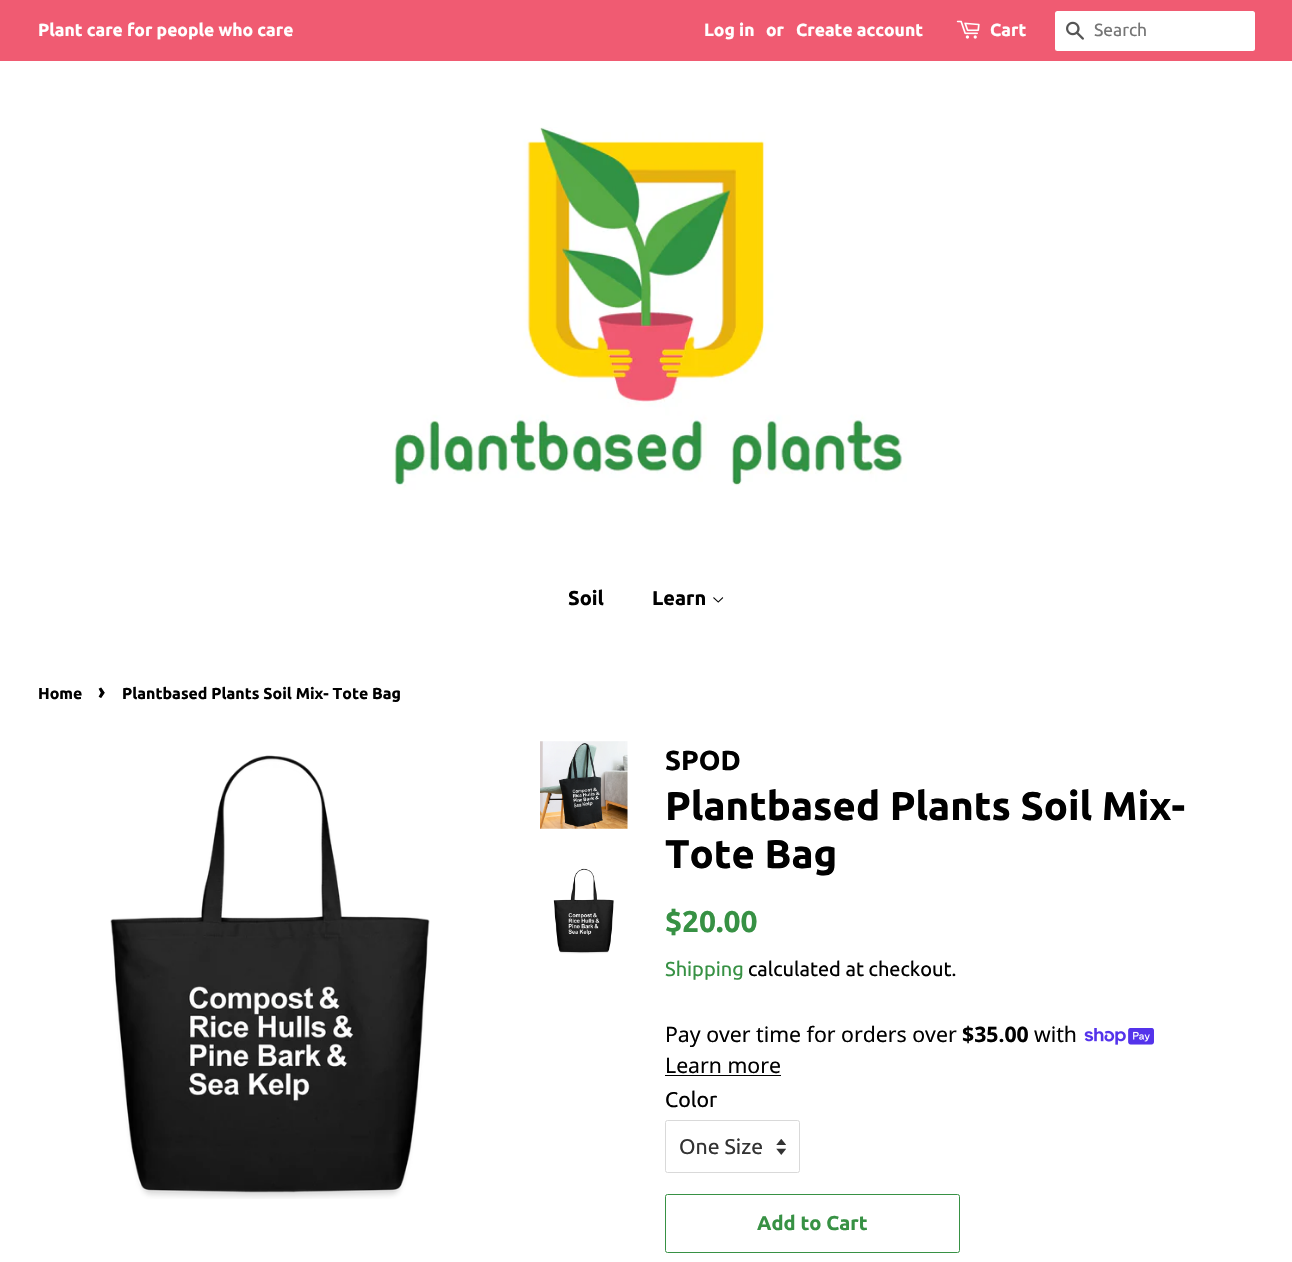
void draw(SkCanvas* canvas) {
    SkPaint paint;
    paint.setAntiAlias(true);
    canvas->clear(0xFFFFFFFF);
    paint.setColor(0xFFF05B72);
    canvas->drawRect(SkRect::MakeXYWH(0, 0, 1292, 61), paint);
    SkFont font1(fontMgr->matchFamilyStyle("Ubuntu", SkFontStyle::Bold()), 17.5f);
    font1.setSubpixel(true);
    paint.setColor(0xFFFFFFFF);
    canvas->drawString("Plant care for people who care", 38, 36, font1, paint);
    canvas->drawString("Log in", 704, 36, font1, paint);
    canvas->drawString("or", 766, 36, font1, paint);
    canvas->drawString("Create account", 796, 36, font1, paint);
    canvas->drawImageRect(SkImages::DeferredFromEncodedData(SkData::MakeFromFileName("img1.png")), SkRect::MakeXYWH(956, 20, 24, 19), SkSamplingOptions());
    canvas->drawString("Cart", 990, 36, font1, paint);
    canvas->drawRoundRect(SkRect::MakeXYWH(1055, 11, 200, 40), 2.5f, 2.5f, paint);
    canvas->drawImageRect(SkImages::DeferredFromEncodedData(SkData::MakeFromFileName("img2.png")), SkRect::MakeXYWH(1066, 21, 18, 19), SkSamplingOptions());
    SkFont font2(fontMgr->matchFamilyStyle("Ubuntu", SkFontStyle::Normal()), 17.5f);
    font2.setSubpixel(true);
    paint.setColor(0xFF757575);
    canvas->drawString("Search", 1094, 36, font2, paint);
    canvas->drawImageRect(SkImages::DeferredFromEncodedData(SkData::MakeFromFileName("img3.png")), SkRect::MakeXYWH(394, 127, 513, 363), SkSamplingOptions());
    SkFont font3(fontMgr->matchFamilyStyle("Ubuntu", SkFontStyle::Bold()), 20);
    font3.setSubpixel(true);
    paint.setColor(0xFF000000);
    canvas->drawString("Soil", 568, 605, font3, paint);
    canvas->drawString("Learn", 652, 605, font3, paint);
    canvas->drawImageRect(SkImages::DeferredFromEncodedData(SkData::MakeFromFileName("img4.png")), SkRect::MakeXYWH(713, 597, 11, 6), SkSamplingOptions());
    SkFont font4(fontMgr->matchFamilyStyle("Ubuntu", SkFontStyle::Bold()), 15.9f);
    font4.setSubpixel(true);
    canvas->drawString("Home", 38, 699, font4, paint);
    SkFont font5(fontMgr->matchFamilyStyle("Ubuntu", SkFontStyle::Bold()), 22);
    font5.setSubpixel(true);
    canvas->drawString("›", 98, 699, font5, paint);
    canvas->drawString("Plantbased Plants Soil Mix- Tote Bag", 122, 699, font4, paint);
    canvas->drawImageRect(SkImages::DeferredFromEncodedData(SkData::MakeFromFileName("img5.png")), SkRect::MakeXYWH(110, 755, 320, 444), SkSamplingOptions());
    canvas->drawImageRect(SkImages::DeferredFromEncodedData(SkData::MakeFromFileName("img6.png")), SkRect::MakeXYWH(540, 741, 88, 88), SkSamplingOptions());
    canvas->drawImageRect(SkImages::DeferredFromEncodedData(SkData::MakeFromFileName("img7.png")), SkRect::MakeXYWH(553, 868, 61, 86), SkSamplingOptions());
    SkFont font6(fontMgr->matchFamilyStyle("Ubuntu", SkFontStyle::Bold()), 27.5f);
    font6.setSubpixel(true);
    canvas->drawString("SPOD", 665, 770, font6, paint);
    SkFont font7(fontMgr->matchFamilyStyle("Ubuntu", SkFontStyle::Bold()), 40);
    font7.setSubpixel(true);
    canvas->drawString("Plantbased Plants Soil Mix-", 665, 820, font7, paint);
    canvas->drawString("Tote Bag", 665, 868, font7, paint);
    SkFont font8(fontMgr->matchFamilyStyle("Ubuntu", SkFontStyle::Bold()), 30);
    font8.setSubpixel(true);
    paint.setColor(0xFF379144);
    canvas->drawString("$20.00", 665, 932, font8, paint);
    SkFont font9(fontMgr->matchFamilyStyle("Ubuntu", SkFontStyle::Normal()), 20);
    font9.setSubpixel(true);
    canvas->drawString("Shipping", 665, 976, font9, paint);
    paint.setColor(0xFF000000);
    canvas->drawString("calculated at checkout.", 748, 976, font9, paint);
    SkFont font10(fontMgr->matchFamilyStyle("Noto Sans", SkFontStyle::Normal()), 21.25f);
    font10.setSubpixel(true);
    canvas->drawString("Pay over time for orders over", 665, 1042, font10, paint);
    SkFont font11(fontMgr->matchFamilyStyle("Noto Sans", SkFontStyle::Bold()), 21.25f);
    font11.setSubpixel(true);
    canvas->drawString("$35.00", 962, 1042, font11, paint);
    canvas->drawString("with", 1034, 1042, font10, paint);
    canvas->drawImageRect(SkImages::DeferredFromEncodedData(SkData::MakeFromFileName("img8.png")), SkRect::MakeXYWH(1084, 1028, 70, 17), SkSamplingOptions());
    canvas->drawString("Learn more", 665, 1073, font10, paint);
    canvas->drawRect(SkRect::MakeXYWH(665, 1075, 116, 1), paint);
    SkFont font12(fontMgr->matchFamilyStyle("Ubuntu", SkFontStyle::Normal()), 21.25f);
    font12.setSubpixel(true);
    canvas->drawString("Color", 665, 1107, font12, paint);
    canvas->drawImageRect(SkImages::DeferredFromEncodedData(SkData::MakeFromFileName("img9.png")), SkRect::MakeXYWH(776, 1139, 10, 16), SkSamplingOptions());
    paint.setStyle(SkPaint::kStroke_Style);
    paint.setStrokeWidth(1);
    paint.setColor(0xFFD9D9D9);
    canvas->drawRoundRect(SkRect::MakeXYWH(665.5f, 1120.5f, 134, 52), 2, 2, paint);
    paint.setStyle(SkPaint::kFill_Style);
    paint.setColor(0xFF333333);
    canvas->drawString("One Size", 679, 1154, font12, paint);
    paint.setStyle(SkPaint::kStroke_Style);
    paint.setColor(0xFF379144);
    canvas->drawRoundRect(SkRect::MakeXYWH(665.5f, 1194.5f, 294, 58), 2, 2, paint);
    paint.setStyle(SkPaint::kFill_Style);
    canvas->drawString("Add to Cart", 757, 1230, font3, paint);
}
